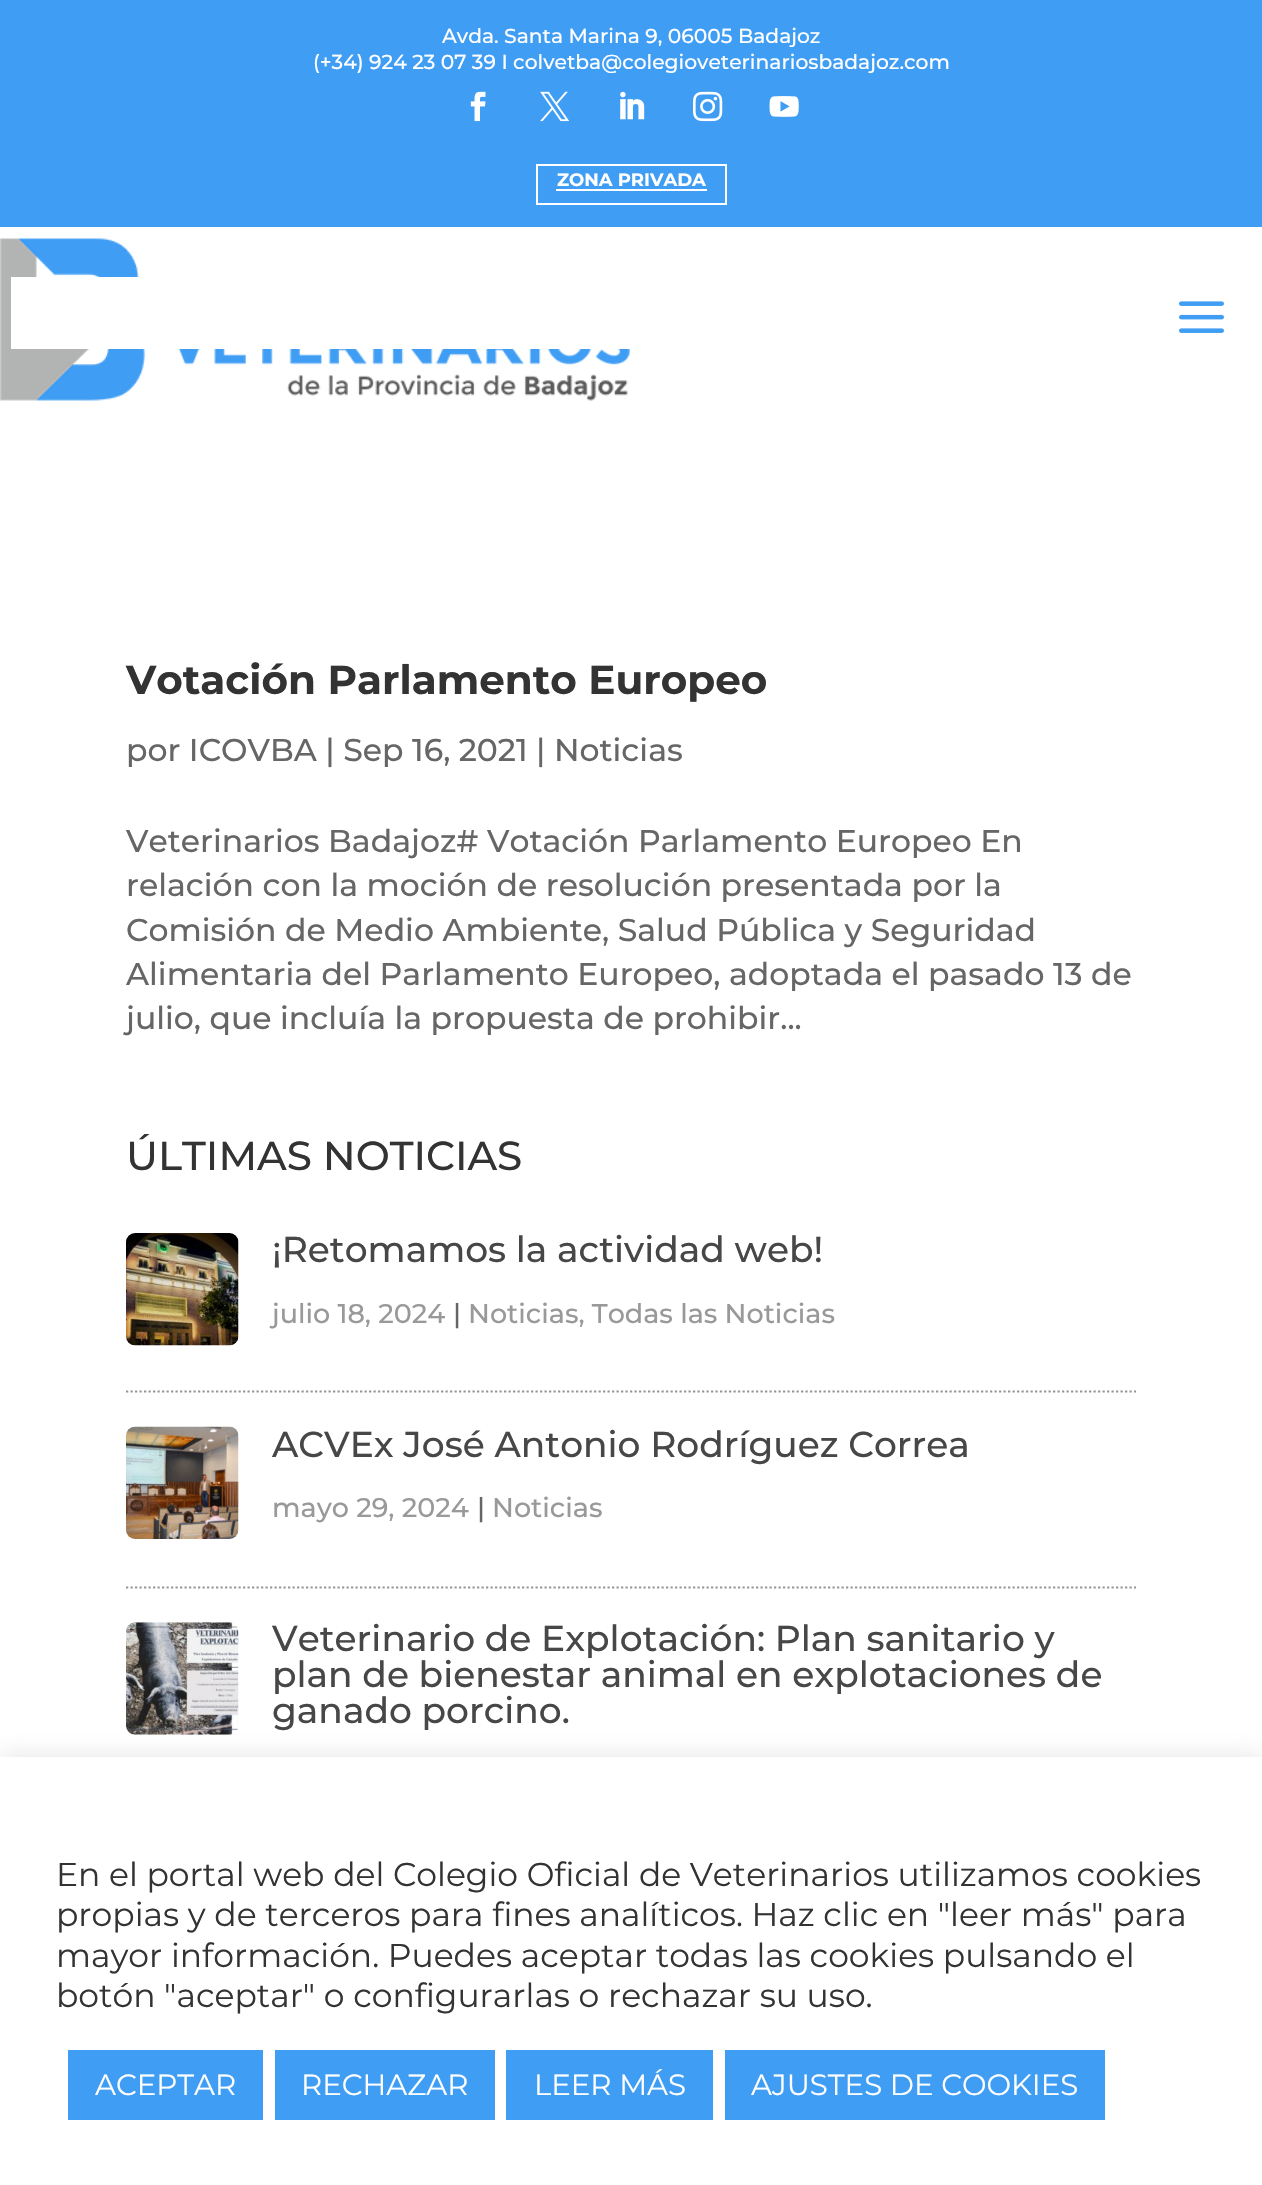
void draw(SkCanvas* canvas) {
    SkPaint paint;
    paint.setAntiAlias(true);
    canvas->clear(0xFFFFFFFF);
    paint.setColor(0xFF3F9DF4);
    canvas->drawRect(SkRect::MakeXYWH(0, 0, 1262, 227), paint);
    SkFont font1(fontMgr->matchFamilyStyle("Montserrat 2", SkFontStyle(100, SkFontStyle::kNormal_Width, SkFontStyle::kUpright_Slant)), 20.25f);
    font1.setSubpixel(true);
    paint.setColor(0xFFFFFFFF);
    canvas->drawString("Avda. Santa Marina 9, 06005 Badajoz", 442, 43, font1, paint);
    canvas->drawString("(+34) 924 23 07 39 I colvetba@colegioveterinariosbadajoz.com", 313, 69, font1, paint);
    canvas->drawImageRect(SkImages::DeferredFromEncodedData(SkData::MakeFromFileName("img1.png")), SkRect::MakeXYWH(470, 91, 16, 31), SkSamplingOptions());
    canvas->drawImageRect(SkImages::DeferredFromEncodedData(SkData::MakeFromFileName("img2.png")), SkRect::MakeXYWH(540, 91, 29, 31), SkSamplingOptions());
    canvas->drawImageRect(SkImages::DeferredFromEncodedData(SkData::MakeFromFileName("img3.png")), SkRect::MakeXYWH(620, 91, 25, 29), SkSamplingOptions());
    canvas->drawImageRect(SkImages::DeferredFromEncodedData(SkData::MakeFromFileName("img4.png")), SkRect::MakeXYWH(693, 91, 30, 31), SkSamplingOptions());
    canvas->drawImageRect(SkImages::DeferredFromEncodedData(SkData::MakeFromFileName("img5.png")), SkRect::MakeXYWH(769, 96, 30, 21), SkSamplingOptions());
    paint.setStyle(SkPaint::kStroke_Style);
    paint.setStrokeWidth(2);
    canvas->drawRect(SkRect::MakeXYWH(537, 165, 189, 39), paint);
    SkFont font2(fontMgr->matchFamilyStyle("Montserrat", SkFontStyle(100, SkFontStyle::kNormal_Width, SkFontStyle::kUpright_Slant)), 18);
    font2.setSubpixel(true);
    paint.setStyle(SkPaint::kFill_Style);
    canvas->drawString("ZONA PRIVADA", 557, 186, font2, paint);
    canvas->drawRect(SkRect::MakeXYWH(556, 189, 151, 2), paint);
    canvas->drawImageRect(SkImages::DeferredFromEncodedData(SkData::MakeFromFileName("img6.png")), SkRect::MakeXYWH(0, 238, 630, 163), SkSamplingOptions());
    canvas->drawRect(SkRect::MakeXYWH(11, 277, 619, 72), paint);
    canvas->drawImageRect(SkImages::DeferredFromEncodedData(SkData::MakeFromFileName("img7.png")), SkRect::MakeXYWH(1179, 301, 45, 32), SkSamplingOptions());
    SkFont font3(fontMgr->matchFamilyStyle("Montserrat", SkFontStyle(100, SkFontStyle::kNormal_Width, SkFontStyle::kUpright_Slant)), 40.5f);
    font3.setSubpixel(true);
    paint.setColor(0xFF333333);
    canvas->drawString("Votación Parlamento Europeo", 126, 694, font3, paint);
    SkFont font4(fontMgr->matchFamilyStyle("Montserrat 2", SkFontStyle(100, SkFontStyle::kNormal_Width, SkFontStyle::kUpright_Slant)), 31.5f);
    font4.setSubpixel(true);
    paint.setColor(0xFF666666);
    canvas->drawString("por ICOVBA | Sep 16, 2021 | Noticias", 126, 761, font4, paint);
    canvas->drawString("Veterinarios Badajoz# Votación Parlamento Europeo En", 126, 852, font4, paint);
    canvas->drawString("relación con la moción de resolución presentada por la", 126, 896, font4, paint);
    canvas->drawString("Comisión de Medio Ambiente, Salud Pública y Seguridad", 126, 941, font4, paint);
    canvas->drawString("Alimentaria del Parlamento Europeo, adoptada el pasado 13 de", 126, 985, font4, paint);
    canvas->drawString("julio, que incluía la propuesta de prohibir...", 126, 1029, font4, paint);
    SkFont font5(fontMgr->matchFamilyStyle("Montserrat 2", SkFontStyle(100, SkFontStyle::kNormal_Width, SkFontStyle::kUpright_Slant)), 40.5f);
    font5.setSubpixel(true);
    paint.setColor(0xFF333333);
    canvas->drawString("ÚLTIMAS NOTICIAS", 126, 1170, font5, paint);
    paint.setStyle(SkPaint::kStroke_Style);
    paint.setStrokeWidth(2.2f);
    paint.setColor(0xFF969696);
    paint.setPathEffect(SkDashPathEffect::Make({{2.25f, 2.25f}}, 0));
    canvas->drawPath(SkPathBuilder().moveTo(126, 1391.5f).lineTo(1136, 1391.5f).detach(), paint);
    paint.setPathEffect(nullptr);
    canvas->drawImageRect(SkImages::DeferredFromEncodedData(SkData::MakeFromFileName("img8.png")), SkRect::MakeXYWH(126, 1233, 113, 113), SkSamplingOptions());
    SkFont font6(fontMgr->matchFamilyStyle("Montserrat 2", SkFontStyle(100, SkFontStyle::kNormal_Width, SkFontStyle::kUpright_Slant)), 36);
    font6.setSubpixel(true);
    paint.setStyle(SkPaint::kFill_Style);
    paint.setColor(0xFF474747);
    canvas->drawString("¡Retomamos la actividad web!", 272, 1262, font6, paint);
    SkFont font7(fontMgr->matchFamilyStyle("Montserrat 2", SkFontStyle(100, SkFontStyle::kNormal_Width, SkFontStyle::kUpright_Slant)), 27);
    font7.setSubpixel(true);
    paint.setColor(0xFF999999);
    canvas->drawString("julio 18, 2024", 272, 1323, font7, paint);
    paint.setColor(0xFF666666);
    canvas->drawString("|", 453, 1323, font7, paint);
    paint.setColor(0xFF999999);
    canvas->drawString("Noticias, Todas las Noticias", 468, 1323, font7, paint);
    paint.setStyle(SkPaint::kStroke_Style);
    paint.setColor(0xFF969696);
    paint.setPathEffect(SkDashPathEffect::Make({{2.25f, 2.25f}}, 0));
    canvas->drawPath(SkPathBuilder().moveTo(126, 1587.5f).lineTo(1136, 1587.5f).detach(), paint);
    paint.setPathEffect(nullptr);
    canvas->drawImageRect(SkImages::DeferredFromEncodedData(SkData::MakeFromFileName("img9.png")), SkRect::MakeXYWH(126, 1426, 113, 113), SkSamplingOptions());
    paint.setStyle(SkPaint::kFill_Style);
    paint.setColor(0xFF474747);
    canvas->drawString("ACVEx José Antonio Rodríguez Correa", 272, 1457, font6, paint);
    paint.setColor(0xFF999999);
    canvas->drawString("mayo 29, 2024", 272, 1517, font7, paint);
    paint.setColor(0xFF666666);
    canvas->drawString("|", 477, 1517, font7, paint);
    paint.setColor(0xFF999999);
    canvas->drawString("Noticias", 492, 1517, font7, paint);
    canvas->drawImageRect(SkImages::DeferredFromEncodedData(SkData::MakeFromFileName("img10.png")), SkRect::MakeXYWH(126, 1622, 113, 113), SkSamplingOptions());
    paint.setColor(0xFF474747);
    canvas->drawString("Veterinario de Explotación: Plan sanitario y", 272, 1651, font6, paint);
    canvas->drawString("plan de bienestar animal en explotaciones de", 272, 1687, font6, paint);
    canvas->drawString("ganado porcino.", 272, 1723, font6, paint);
    paint.setColor(0x4DACABAB);
    paint.setMaskFilter(SkMaskFilter::MakeBlur(kNormal_SkBlurStyle, 11));
    canvas->drawRect(SkRect::MakeXYWH(0, 1755, 1262, 430), paint);
    paint.setMaskFilter(nullptr);
    paint.setColor(0xFFFFFFFF);
    canvas->drawRect(SkRect::MakeXYWH(0, 1757, 1262, 428), paint);
    SkFont font8(fontMgr->matchFamilyStyle("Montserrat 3", SkFontStyle(100, SkFontStyle::kNormal_Width, SkFontStyle::kUpright_Slant)), 33);
    font8.setSubpixel(true);
    paint.setColor(0xFF333333);
    canvas->drawString("En el portal web del Colegio Oficial de Veterinarios utilizamos cookies", 56, 1886, font8, paint);
    canvas->drawString("propias y de terceros para fines analíticos. Haz clic en \"leer más\" para", 56, 1926, font8, paint);
    canvas->drawString("mayor información. Puedes aceptar todas las cookies pulsando el", 56, 1967, font8, paint);
    canvas->drawString("botón \"aceptar\" o configurarlas o rechazar su uso.", 56, 2007, font8, paint);
    paint.setColor(0xFF3F9DF4);
    canvas->drawRect(SkRect::MakeXYWH(68, 2050, 195, 70), paint);
    SkFont font9(fontMgr->matchFamilyStyle("Montserrat 3", SkFontStyle(100, SkFontStyle::kNormal_Width, SkFontStyle::kUpright_Slant)), 29.25f);
    font9.setSubpixel(true);
    paint.setColor(0xFFFFFFFF);
    canvas->drawString("ACEPTAR", 95, 2095, font9, paint);
    paint.setColor(0xFF3F9DF4);
    canvas->drawRect(SkRect::MakeXYWH(275, 2050, 220, 70), paint);
    paint.setColor(0xFFFFFFFF);
    canvas->drawString("RECHAZAR", 301, 2095, font9, paint);
    paint.setColor(0xFF3F9DF4);
    canvas->drawRect(SkRect::MakeXYWH(506, 2050, 207, 70), paint);
    paint.setColor(0xFFFFFFFF);
    canvas->drawString("LEER MÁS", 534, 2095, font9, paint);
    paint.setColor(0xFF3F9DF4);
    canvas->drawRect(SkRect::MakeXYWH(725, 2050, 380, 70), paint);
    paint.setColor(0xFFFFFFFF);
    canvas->drawString("AJUSTES DE COOKIES", 751, 2095, font9, paint);
}
